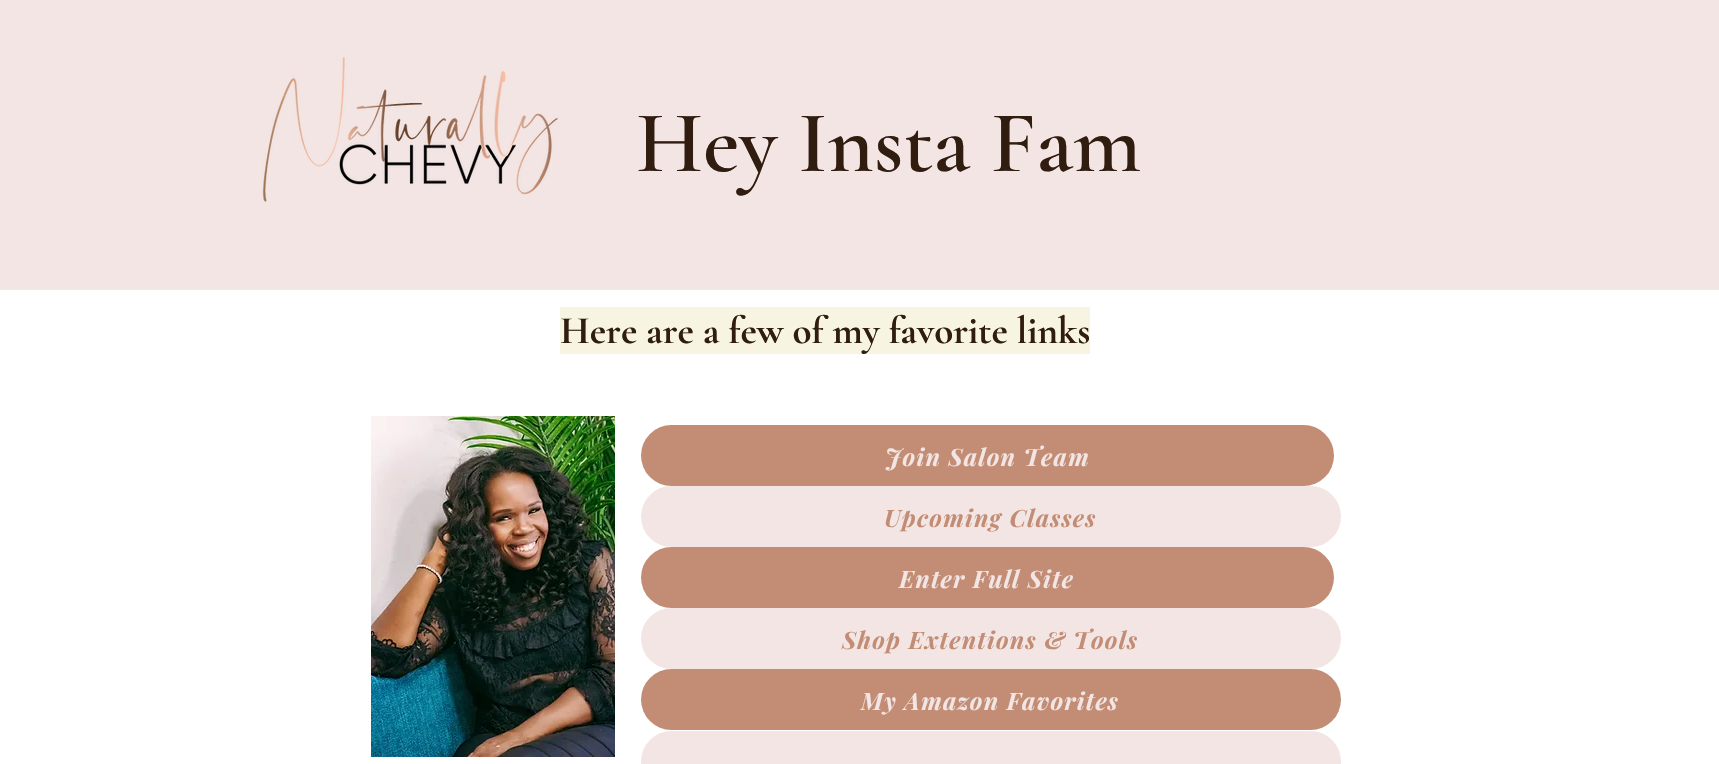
void draw(SkCanvas* canvas) {
    SkPaint paint;
    paint.setAntiAlias(true);
    auto spacedText = [&](const char* s, float x, float y, const SkFont& font, const SkPaint& ink, float letter, float word) {
        std::vector<SkGlyphID> glyphs(font.countText(s, strlen(s), SkTextEncoding::kUTF8));
        std::vector<float> xs(glyphs.size());
        font.textToGlyphs(s, strlen(s), SkTextEncoding::kUTF8, glyphs);
        font.getXPos(glyphs, xs, x);
        float extra = 0;
        for (size_t i = 0; i < glyphs.size(); i++) {
            xs[i] += extra;
            extra += letter + word * (glyphs[i] == font.unicharToGlyph(' '));
        }
        canvas->drawTextBlob(SkTextBlob::MakeFromPosHGlyphs(glyphs, xs, y, font), 0, 0, ink);
    };
    canvas->clear(0xFFFFFFFF);
    paint.setColor(0xFFF2E5E4);
    canvas->drawRect(SkRect::MakeXYWH(0, 0, 1719, 290), paint);
    canvas->drawImageRect(SkImages::DeferredFromEncodedData(SkData::MakeFromFileName("img1.png")), SkRect::MakeXYWH(262, 57, 296, 145), SkSamplingOptions());
    SkFont font1(fontMgr->matchFamilyStyle("Cormorant Garamond", SkFontStyle(600, SkFontStyle::kNormal_Width, SkFontStyle::kUpright_Slant)), 88);
    font1.setSubpixel(true);
    paint.setColor(0xFF301D10);
    canvas->drawString("Hey Insta Fam", 636, 171, font1, paint);
    paint.setColor(0xFFF7F5E1);
    canvas->drawRect(SkRect::MakeXYWH(560, 307, 530, 47), paint);
    SkFont font2(fontMgr->matchFamilyStyle("Cormorant Garamond", SkFontStyle::Bold()), 39);
    font2.setSubpixel(true);
    paint.setColor(0xFF301D10);
    canvas->drawString("Here are a few of my favorite links", 560, 343, font2, paint);
    canvas->drawImageRect(SkImages::DeferredFromEncodedData(SkData::MakeFromFileName("img2.png")), SkRect::MakeXYWH(371, 416, 244, 341), SkSamplingOptions());
    paint.setColor(0xFFC28D74);
    canvas->drawRoundRect(SkRect::MakeXYWH(641, 425, 693, 61), 30.5f, 30.5f, paint);
    SkFont font3(fontMgr->matchFamilyStyle("Playfair Display", SkFontStyle::BoldItalic()), 24);
    font3.setSubpixel(true);
    paint.setColor(0xFFF2E5E4);
    spacedText("Join Salon Team", 885, 466, font3, paint, 1.2f, 0);
    canvas->drawRoundRect(SkRect::MakeXYWH(641, 486, 700, 61), 30.5f, 30.5f, paint);
    paint.setColor(0xFFC28D74);
    spacedText("Upcoming Classes", 884, 527, font3, paint, 1.2f, 0);
    canvas->drawRoundRect(SkRect::MakeXYWH(641, 547, 693, 61), 30.5f, 30.5f, paint);
    paint.setColor(0xFFF2E5E4);
    spacedText("Enter Full Site", 899, 588, font3, paint, 1.2f, 0);
    canvas->drawRoundRect(SkRect::MakeXYWH(641, 608, 700, 61), 30.5f, 30.5f, paint);
    paint.setColor(0xFFC28D74);
    spacedText("Shop Extentions & Tools", 842, 649, font3, paint, 1.2f, 0);
    canvas->drawRoundRect(SkRect::MakeXYWH(641, 669, 700, 61), 30.5f, 30.5f, paint);
    paint.setColor(0xFFF2E5E4);
    spacedText("My Amazon Favorites", 861, 710, font3, paint, 1.2f, 0);
    canvas->drawRoundRect(SkRect::MakeXYWH(641, 731, 700, 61), 30.5f, 30.5f, paint);
}
